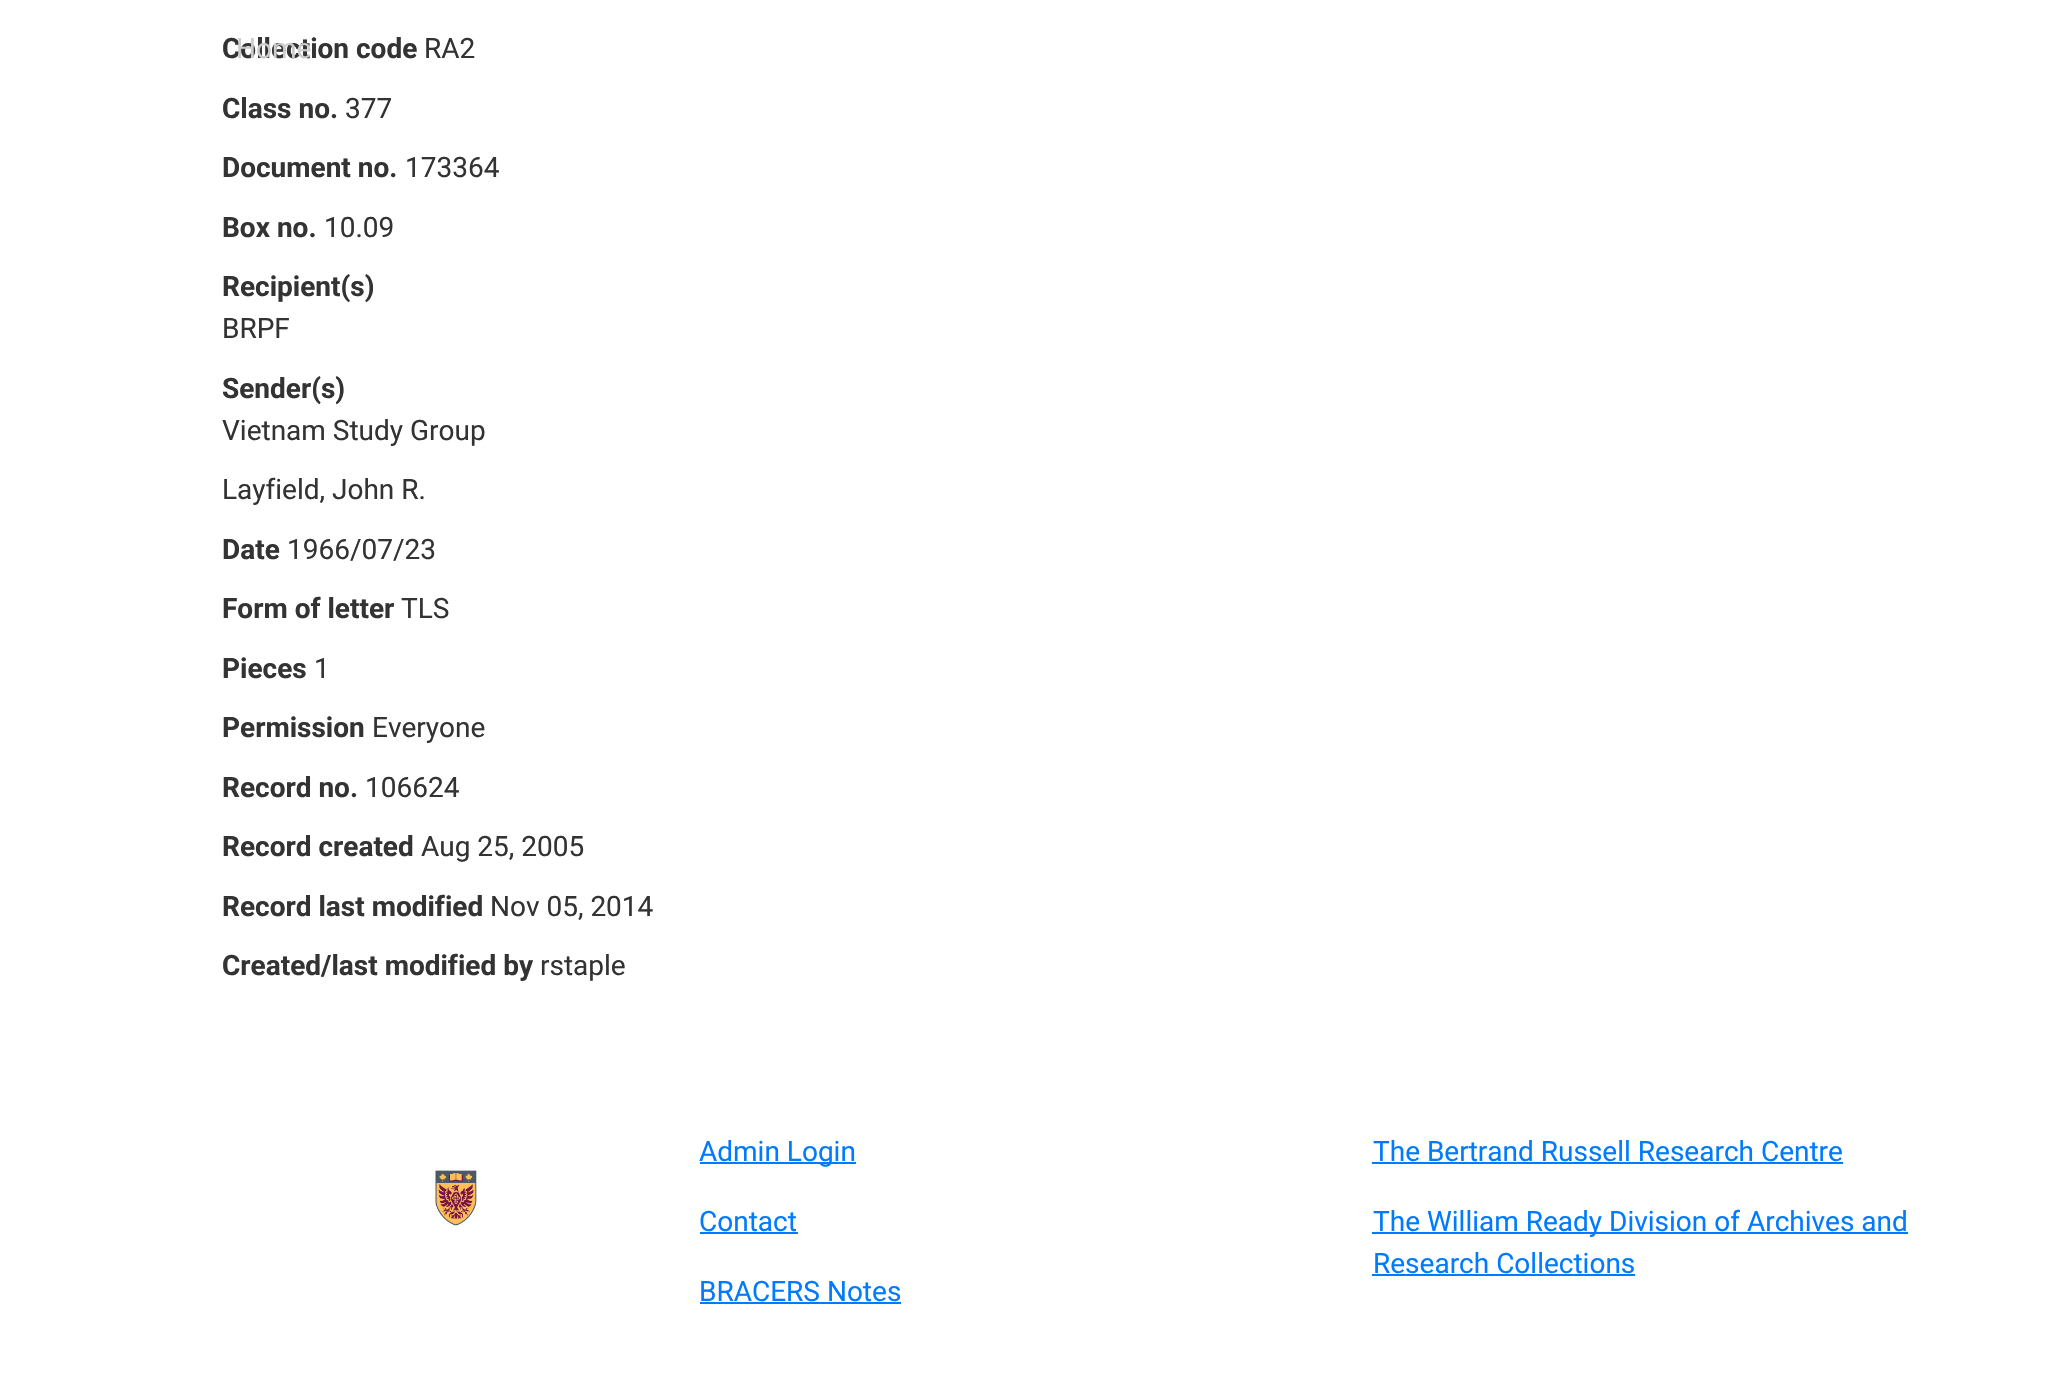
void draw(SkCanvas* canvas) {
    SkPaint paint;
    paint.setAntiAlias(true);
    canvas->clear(0xFFFFFFFF);
    SkFont font1(fontMgr->matchFamilyStyle("Roboto", SkFontStyle::Bold()), 28);
    font1.setSubpixel(true);
    paint.setColor(0xFF333333);
    canvas->drawString("Collection code", 222, 58, font1, paint);
    SkFont font2(fontMgr->matchFamilyStyle("Roboto", SkFontStyle::Normal()), 28);
    font2.setSubpixel(true);
    canvas->drawString("RA2", 424, 58, font2, paint);
    canvas->drawString("Class no.", 222, 118, font1, paint);
    canvas->drawString("377", 345, 118, font2, paint);
    canvas->drawString("Document no.", 222, 177, font1, paint);
    canvas->drawString("173364", 405, 177, font2, paint);
    canvas->drawString("Box no.", 222, 237, font1, paint);
    canvas->drawString("10.09", 324, 237, font2, paint);
    canvas->drawString("Recipient(s)", 222, 296, font1, paint);
    canvas->drawString("BRPF", 222, 338, font2, paint);
    canvas->drawString("Sender(s)", 222, 398, font1, paint);
    canvas->drawString("Vietnam Study Group", 222, 440, font2, paint);
    canvas->drawString("Layfield, John R.", 222, 499, font2, paint);
    canvas->drawString("Date", 222, 559, font1, paint);
    canvas->drawString("1966/07/23", 287, 559, font2, paint);
    canvas->drawString("Form of letter", 222, 618, font1, paint);
    canvas->drawString("TLS", 401, 618, font2, paint);
    canvas->drawString("Pieces", 222, 678, font1, paint);
    canvas->drawString("1", 314, 678, font2, paint);
    canvas->drawString("Permission", 222, 737, font1, paint);
    canvas->drawString("Everyone", 372, 737, font2, paint);
    canvas->drawString("Record no.", 222, 797, font1, paint);
    canvas->drawString("106624", 365, 797, font2, paint);
    canvas->drawString("Record created", 222, 856, font1, paint);
    canvas->drawString("Aug 25, 2005", 421, 856, font2, paint);
    canvas->drawString("Record last modified", 222, 916, font1, paint);
    canvas->drawString("Nov 05, 2014", 490, 916, font2, paint);
    canvas->drawString("Created/last modified by", 222, 975, font1, paint);
    canvas->drawString("rstaple", 540, 975, font2, paint);
    paint.setColor(0xFFCCCCCC);
    canvas->drawString("Home", 236, 58, font2, paint);
    canvas->drawImageRect(SkImages::DeferredFromEncodedData(SkData::MakeFromFileName("img1.png")), SkRect::MakeXYWH(435, 1170, 42, 56), SkSamplingOptions());
    paint.setColor(0xFF007BFF);
    canvas->drawRect(SkRect::MakeXYWH(700, 1162, 156, 2), paint);
    canvas->drawString("Admin Login", 699, 1161, font2, paint);
    canvas->drawString("Contact", 699, 1231, font2, paint);
    canvas->drawRect(SkRect::MakeXYWH(700, 1232, 98, 2), paint);
    canvas->drawString("BRACERS Notes", 699, 1301, font2, paint);
    canvas->drawRect(SkRect::MakeXYWH(700, 1302, 201, 2), paint);
    canvas->drawString("The Bertrand Russell Research Centre", 1373, 1161, font2, paint);
    canvas->drawRect(SkRect::MakeXYWH(1372, 1162, 471, 2), paint);
    canvas->drawRect(SkRect::MakeXYWH(1372, 1232, 536, 2), paint);
    canvas->drawString("The William Ready Division of Archives and", 1373, 1231, font2, paint);
    canvas->drawString("Research Collections", 1373, 1273, font2, paint);
    canvas->drawRect(SkRect::MakeXYWH(1372, 1274, 263, 2), paint);
}
